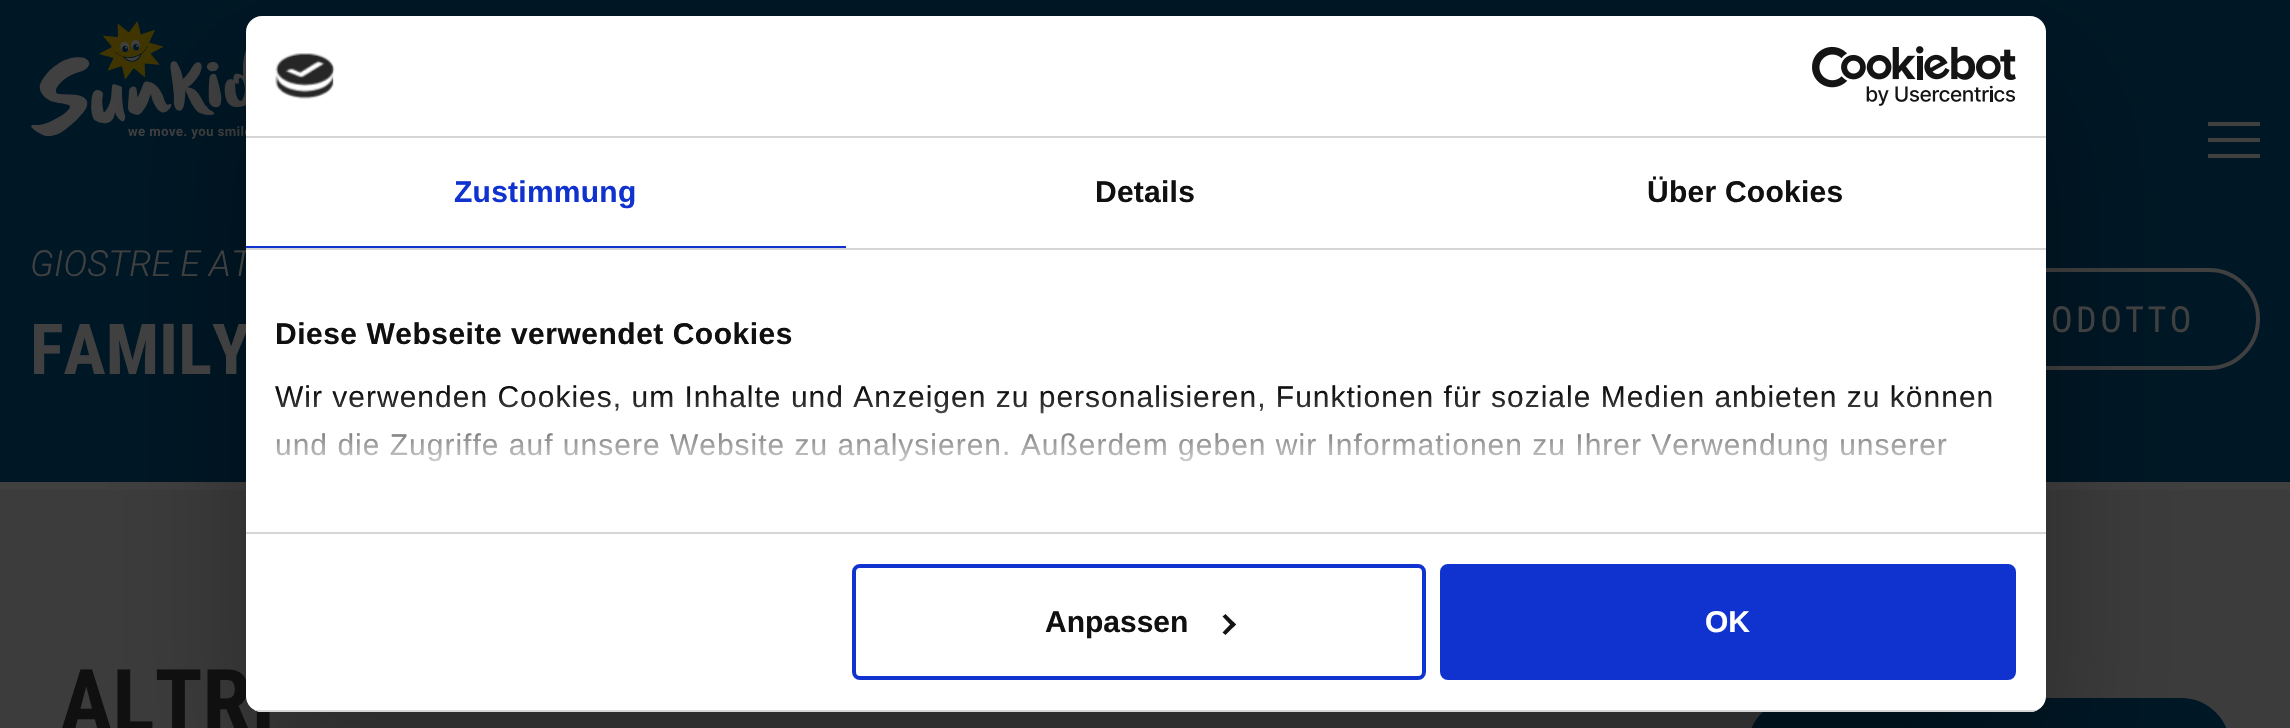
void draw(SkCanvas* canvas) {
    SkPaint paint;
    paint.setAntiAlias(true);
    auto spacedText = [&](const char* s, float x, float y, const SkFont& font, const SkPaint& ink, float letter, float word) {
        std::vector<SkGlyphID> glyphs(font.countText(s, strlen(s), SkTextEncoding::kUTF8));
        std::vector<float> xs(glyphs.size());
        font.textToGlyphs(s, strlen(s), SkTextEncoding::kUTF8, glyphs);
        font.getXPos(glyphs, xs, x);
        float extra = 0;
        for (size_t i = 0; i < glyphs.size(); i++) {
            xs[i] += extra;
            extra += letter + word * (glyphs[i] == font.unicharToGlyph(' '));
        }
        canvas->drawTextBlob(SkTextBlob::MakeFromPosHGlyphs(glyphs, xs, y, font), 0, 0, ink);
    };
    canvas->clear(0xFF404040);
    paint.setColor(0xFF001725);
    canvas->drawRect(SkRect::MakeXYWH(0, 0, 2290, 482), paint);
    canvas->drawImageRect(SkImages::DeferredFromEncodedData(SkData::MakeFromFileName("img1.png")), SkRect::MakeXYWH(31, 21, 215, 118), SkSamplingOptions());
    paint.setColor(0xFF404040);
    canvas->drawRect(SkRect::MakeXYWH(2208, 122, 52, 4), paint);
    canvas->drawRect(SkRect::MakeXYWH(2208, 138, 52, 4), paint);
    canvas->drawRect(SkRect::MakeXYWH(2208, 154, 52, 4), paint);
    paint.setStyle(SkPaint::kStroke_Style);
    paint.setStrokeWidth(4);
    canvas->drawRoundRect(SkRect::MakeXYWH(1886, 270, 372, 98), 49, 49, paint);
    paint.setStyle(SkPaint::kFill_Style);
    paint.setColor(0xFF3C3C3C);
    canvas->drawRect(SkRect::MakeXYWH(0, 490, 2290, 238), paint);
    paint.setColor(0xFF001725);
    canvas->drawRoundRect(SkRect::MakeXYWH(1749, 699, 480, 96), 65, 65, paint);
    paint.setStyle(SkPaint::kStroke_Style);
    paint.setStrokeWidth(2);
    canvas->drawRoundRect(SkRect::MakeXYWH(1749, 699, 480, 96), 65, 65, paint);
    paint.setStyle(SkPaint::kFill_Style);
    paint.setColor(0x4D000000);
    paint.setMaskFilter(SkMaskFilter::MakeBlur(kNormal_SkBlurStyle, 68));
    canvas->drawRoundRect(SkRect::MakeXYWH(246, 80, 1800, 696), 16, 16, paint);
    paint.setMaskFilter(nullptr);
    SkFont font1(fontMgr->matchFamilyStyle("Roboto", SkFontStyle(300, SkFontStyle::kNormal_Width, SkFontStyle::kItalic_Slant)), 36);
    font1.setSubpixel(true);
    paint.setColor(0xFF404040);
    canvas->drawString("GIOSTRE E AT", 30, 276, font1, paint);
    SkFont font2(fontMgr->matchFamilyStyle("Roboto Condensed", SkFontStyle::Bold()), 70.5f);
    font2.setSubpixel(true);
    canvas->drawString("FAMILY", 30, 374, font2, paint);
    SkFont font3(fontMgr->matchFamilyStyle("Roboto Condensed", SkFontStyle::Bold()), 88);
    font3.setSubpixel(true);
    paint.setColor(0xFF101010);
    canvas->drawString("ALTRI", 60, 732, font3, paint);
    paint.setColor(0xFFFFFFFF);
    canvas->drawRoundRect(SkRect::MakeXYWH(246, 16, 1800, 696), 16, 16, paint);
    paint.setColor(0xFFD6D6D6);
    canvas->drawRect(SkRect::MakeXYWH(246, 136, 1800, 2), paint);
    canvas->drawImageRect(SkImages::DeferredFromEncodedData(SkData::MakeFromFileName("img2.png")), SkRect::MakeXYWH(275, 53, 60, 46), SkSamplingOptions());
    canvas->drawImageRect(SkImages::DeferredFromEncodedData(SkData::MakeFromFileName("img3.png")), SkRect::MakeXYWH(1812, 46, 204, 60), SkSamplingOptions());
    canvas->drawRect(SkRect::MakeXYWH(246, 248, 1800, 2), paint);
    paint.setColor(0xFF1032CF);
    canvas->drawRect(SkRect::MakeXYWH(246, 246, 600, 2), paint);
    SkFont font4(fontMgr->matchFamilyStyle("Liberation Sans", SkFontStyle::Bold()), 30);
    font4.setSubpixel(true);
    spacedText("Zustimmung", 454, 202, font4, paint, 0.25f, 0);
    paint.setColor(0xFF101010);
    spacedText("Details", 1095, 202, font4, paint, 0.25f, 0);
    spacedText("Über Cookies", 1647, 202, font4, paint, 0.25f, 0);
    paint.setColor(0xFFD6D6D6);
    canvas->drawRect(SkRect::MakeXYWH(246, 532, 1800, 2), paint);
    paint.setColor(0xFF101010);
    spacedText("Diese Webseite verwendet Cookies", 275, 344, font4, paint, 0.5f, 0);
    SkFont font5(fontMgr->matchFamilyStyle("Liberation Sans", SkFontStyle::Normal()), 30);
    font5.setSubpixel(true);
    spacedText("Wir verwenden Cookies, um Inhalte und Anzeigen zu personalisieren, Funktionen für soziale Medien anbieten zu können", 275, 407, font5, paint, 1, 0);
    spacedText("und die Zugriffe auf unsere Website zu analysieren. Außerdem geben wir Informationen zu Ihrer Verwendung unserer", 275, 455, font5, paint, 1, 0);
    {
        const SkColor colors[] = {0xFFFFFFFF, 0xCCFFFFFF, 0x00FFFFFF};
        const float stops[] = {0, 0.5f, 1};
        const SkPoint ends[] = {{1133, 532}, {1133, 392}};
        paint.setShader(SkGradientShader::MakeLinear(ends, colors, stops, 3, SkTileMode::kClamp));
        paint.setAlpha(255);
    }
    canvas->drawRect(SkRect::MakeXYWH(276, 394, 1716, 68), paint);
    canvas->save();
    canvas->clipPath(SkPathBuilder().moveTo(262, 16).lineTo(2030, 16).cubicTo(2039, 16, 2046, 23, 2046, 32).lineTo(2046, 696).cubicTo(2046, 705, 2039, 712, 2030, 712).lineTo(262, 712).cubicTo(253, 712, 246, 705, 246, 696).lineTo(246, 32).cubicTo(246, 23, 253, 16, 262, 16).close().detach(), true);
    paint.setShader(nullptr);
    paint.setColor(0xFFD6D6D6);
    canvas->drawRect(SkRect::MakeXYWH(246, 710, 1800, 2), paint);
    canvas->restore();
    paint.setStyle(SkPaint::kStroke_Style);
    paint.setStrokeWidth(4);
    paint.setColor(0xFF1032CF);
    canvas->drawRoundRect(SkRect::MakeXYWH(854, 566, 570, 112), 6, 6, paint);
    paint.setStyle(SkPaint::kFill_Style);
    paint.setColor(0xFF101010);
    canvas->drawString("Anpassen", 1045, 632, font4, paint);
    paint.setColor(0xFF141414);
    canvas->drawPath(SkPathBuilder().moveTo(1225.5f, 614).lineTo(1236, 624.5f).lineTo(1233, 627.5f).lineTo(1222.5f, 616.5f).close().detach(), paint);
    canvas->drawPath(SkPathBuilder().moveTo(1233, 621.5f).lineTo(1236, 624.5f).lineTo(1225.5f, 635).lineTo(1222.5f, 632.5f).close().detach(), paint);
    paint.setColor(0xFF1032CF);
    canvas->drawRoundRect(SkRect::MakeXYWH(1442, 566, 572, 112), 6, 6, paint);
    paint.setStyle(SkPaint::kStroke_Style);
    canvas->drawRoundRect(SkRect::MakeXYWH(1442, 566, 572, 112), 6, 6, paint);
    paint.setStyle(SkPaint::kFill_Style);
    paint.setColor(0xFFFFFFFF);
    canvas->drawString("OK", 1705, 632, font4, paint);
    SkFont font6(fontMgr->matchFamilyStyle("Roboto Condensed", SkFontStyle::Normal()), 36);
    font6.setSubpixel(true);
    paint.setColor(0xFF404040);
    spacedText("ODOTTO", 2051, 332, font6, paint, 3.5f, 0);
}
